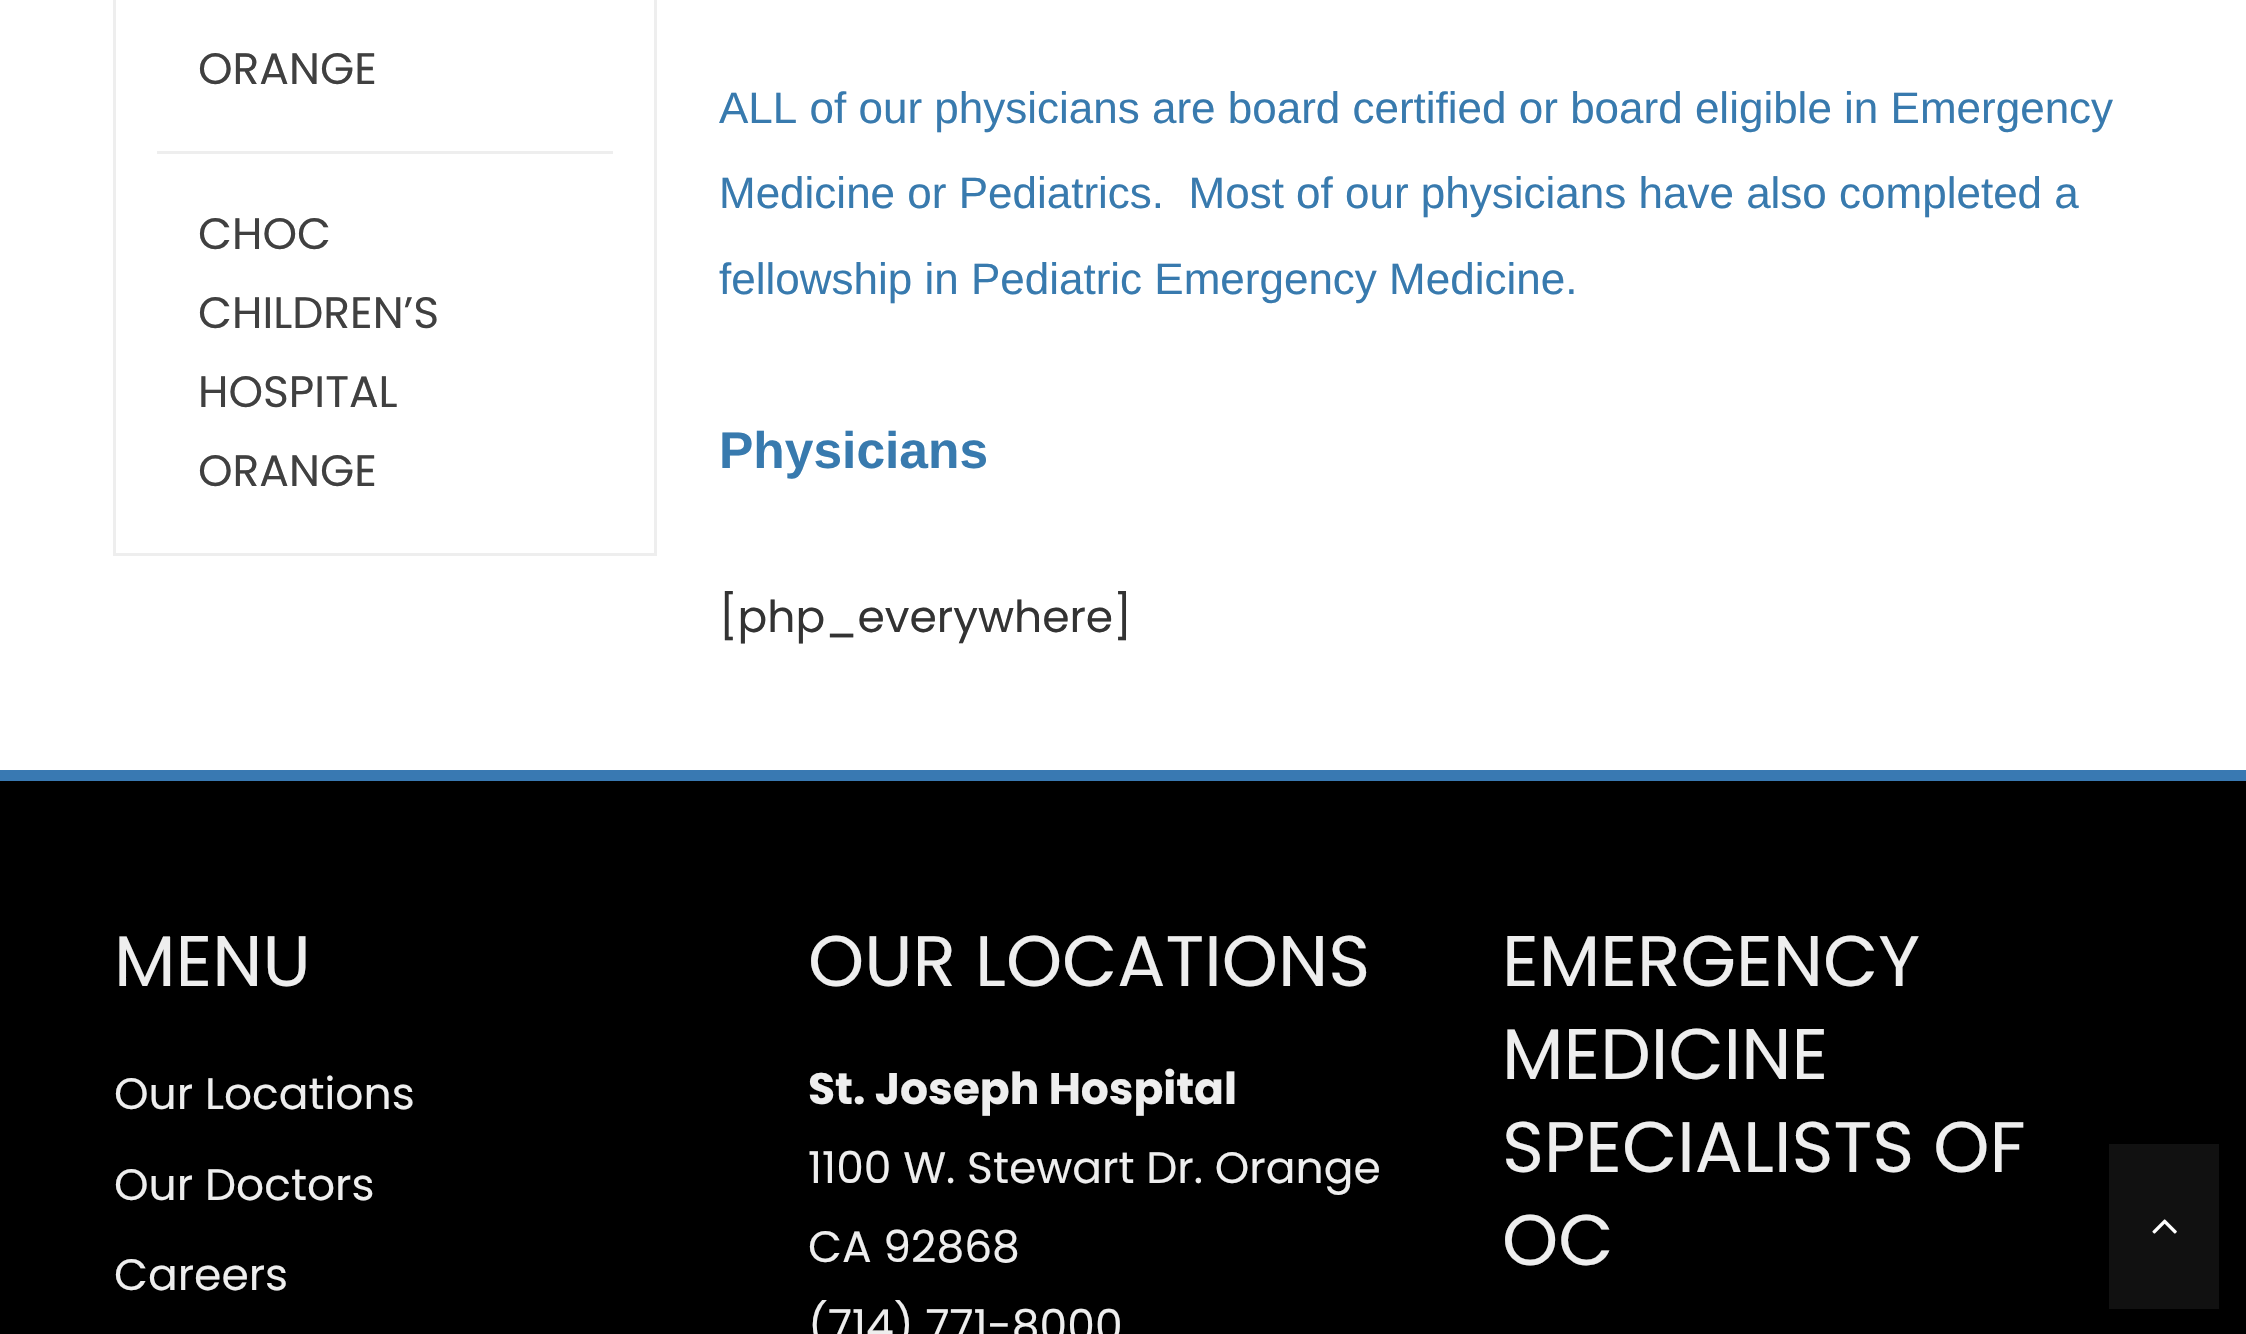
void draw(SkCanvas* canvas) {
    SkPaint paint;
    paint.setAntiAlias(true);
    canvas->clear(0xFFFFFFFF);
    paint.setStyle(SkPaint::kStroke_Style);
    paint.setStrokeWidth(3);
    paint.setColor(0xFFEEEEEE);
    canvas->drawRect(SkRect::MakeXYWH(114.5f, -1.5f, 541, 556), paint);
    paint.setStyle(SkPaint::kFill_Style);
    canvas->drawRect(SkRect::MakeXYWH(157, 151, 456, 3), paint);
    SkFont font1(fontMgr->matchFamilyStyle("Poppins", SkFontStyle::Normal()), 44);
    font1.setSubpixel(true);
    paint.setColor(0xFF404040);
    canvas->drawString("ORANGE", 198, 84, font1, paint);
    canvas->drawString("CHOC", 198, 249, font1, paint);
    canvas->drawString("CHILDREN’S", 198, 328, font1, paint);
    canvas->drawString("HOSPITAL", 198, 407, font1, paint);
    canvas->drawString("ORANGE", 198, 486, font1, paint);
    SkFont font2(fontMgr->matchFamilyStyle("Liberation Sans", SkFontStyle::Normal()), 44);
    font2.setSubpixel(true);
    paint.setColor(0xFF387AAE);
    canvas->drawString("ALL of our physicians are board certified or board eligible in Emergency", 719, 123, font2, paint);
    canvas->drawString("Medicine or Pediatrics.  Most of our physicians have also completed a", 719, 208, font2, paint);
    canvas->drawString("fellowship in Pediatric Emergency Medicine.", 719, 294, font2, paint);
    SkFont font3(fontMgr->matchFamilyStyle("Liberation Sans", SkFontStyle::Bold()), 51.5f);
    font3.setSubpixel(true);
    canvas->drawString("Physicians", 719, 468, font3, paint);
    paint.setColor(0xFF333333);
    canvas->drawString("[php_everywhere]", 719, 632, font1, paint);
    paint.setColor(0xFF000000);
    canvas->drawRect(SkRect::MakeXYWH(0, 781, 2246, 553), paint);
    paint.setColor(0xFF3979B2);
    canvas->drawRect(SkRect::MakeXYWH(0, 770, 2246, 11), paint);
    SkFont font4(fontMgr->matchFamilyStyle("Poppins", SkFontStyle::Normal()), 71.5f);
    font4.setSubpixel(true);
    paint.setColor(0xFFEEEEEE);
    canvas->drawString("MENU", 114, 986, font4, paint);
    canvas->drawString("Our Locations", 114, 1109, font1, paint);
    canvas->drawString("Our Doctors", 114, 1200, font1, paint);
    canvas->drawString("Careers", 114, 1290, font1, paint);
    canvas->drawString("OUR LOCATIONS", 808, 986, font4, paint);
    SkFont font5(fontMgr->matchFamilyStyle("Poppins", SkFontStyle::Bold()), 44);
    font5.setSubpixel(true);
    canvas->drawString("St. Joseph Hospital", 808, 1104, font5, paint);
    canvas->drawString("1100 W. Stewart Dr. Orange", 808, 1183, font1, paint);
    canvas->drawString("CA 92868", 808, 1262, font1, paint);
    canvas->drawString("(714) 771-8000", 808, 1341, font1, paint);
    canvas->drawString("EMERGENCY", 1502, 986, font4, paint);
    canvas->drawString("MEDICINE", 1502, 1079, font4, paint);
    canvas->drawString("SPECIALISTS OF", 1502, 1172, font4, paint);
    canvas->drawString("OC", 1502, 1265, font4, paint);
    paint.setColor(0xFF111111);
    canvas->drawRect(SkRect::MakeXYWH(2109, 1144, 110, 165), paint);
    canvas->drawImageRect(SkImages::DeferredFromEncodedData(SkData::MakeFromFileName("img1.png")), SkRect::MakeXYWH(2152, 1219, 25, 15), SkSamplingOptions());
}
